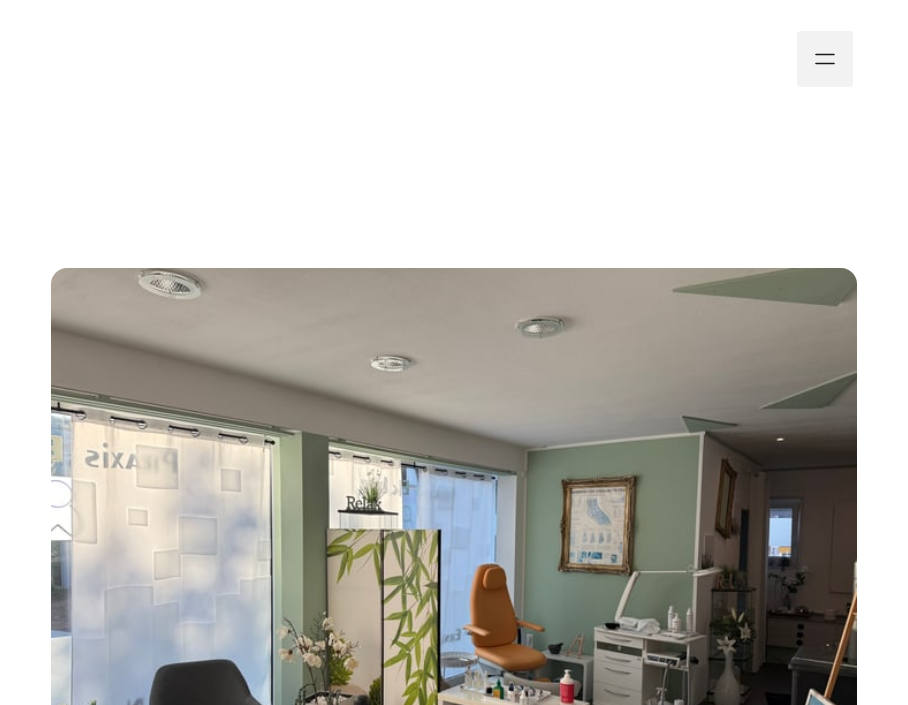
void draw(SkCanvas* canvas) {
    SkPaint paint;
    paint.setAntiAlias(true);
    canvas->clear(0xFFFFFFFF);
    paint.setColor(0xFFF2F2F2);
    canvas->drawRoundRect(SkRect::MakeXYWH(797, 31, 56, 56), 4, 4, paint);
    paint.setStyle(SkPaint::kStroke_Style);
    paint.setStrokeWidth(1.6f);
    paint.setStrokeCap(SkPaint::kRound_Cap);
    paint.setStrokeJoin(SkPaint::kRound_Join);
    paint.setColor(0xFF191919);
    canvas->drawPath(SkPathBuilder().moveTo(816, 54.5f).lineTo(834, 54.5f).moveTo(816, 63.5f).lineTo(834, 63.5f).detach(), paint);
    canvas->drawImageRect(SkImages::DeferredFromEncodedData(SkData::MakeFromFileName("img1.png")), SkRect::MakeXYWH(51, 268, 806, 437), SkSamplingOptions());
}
